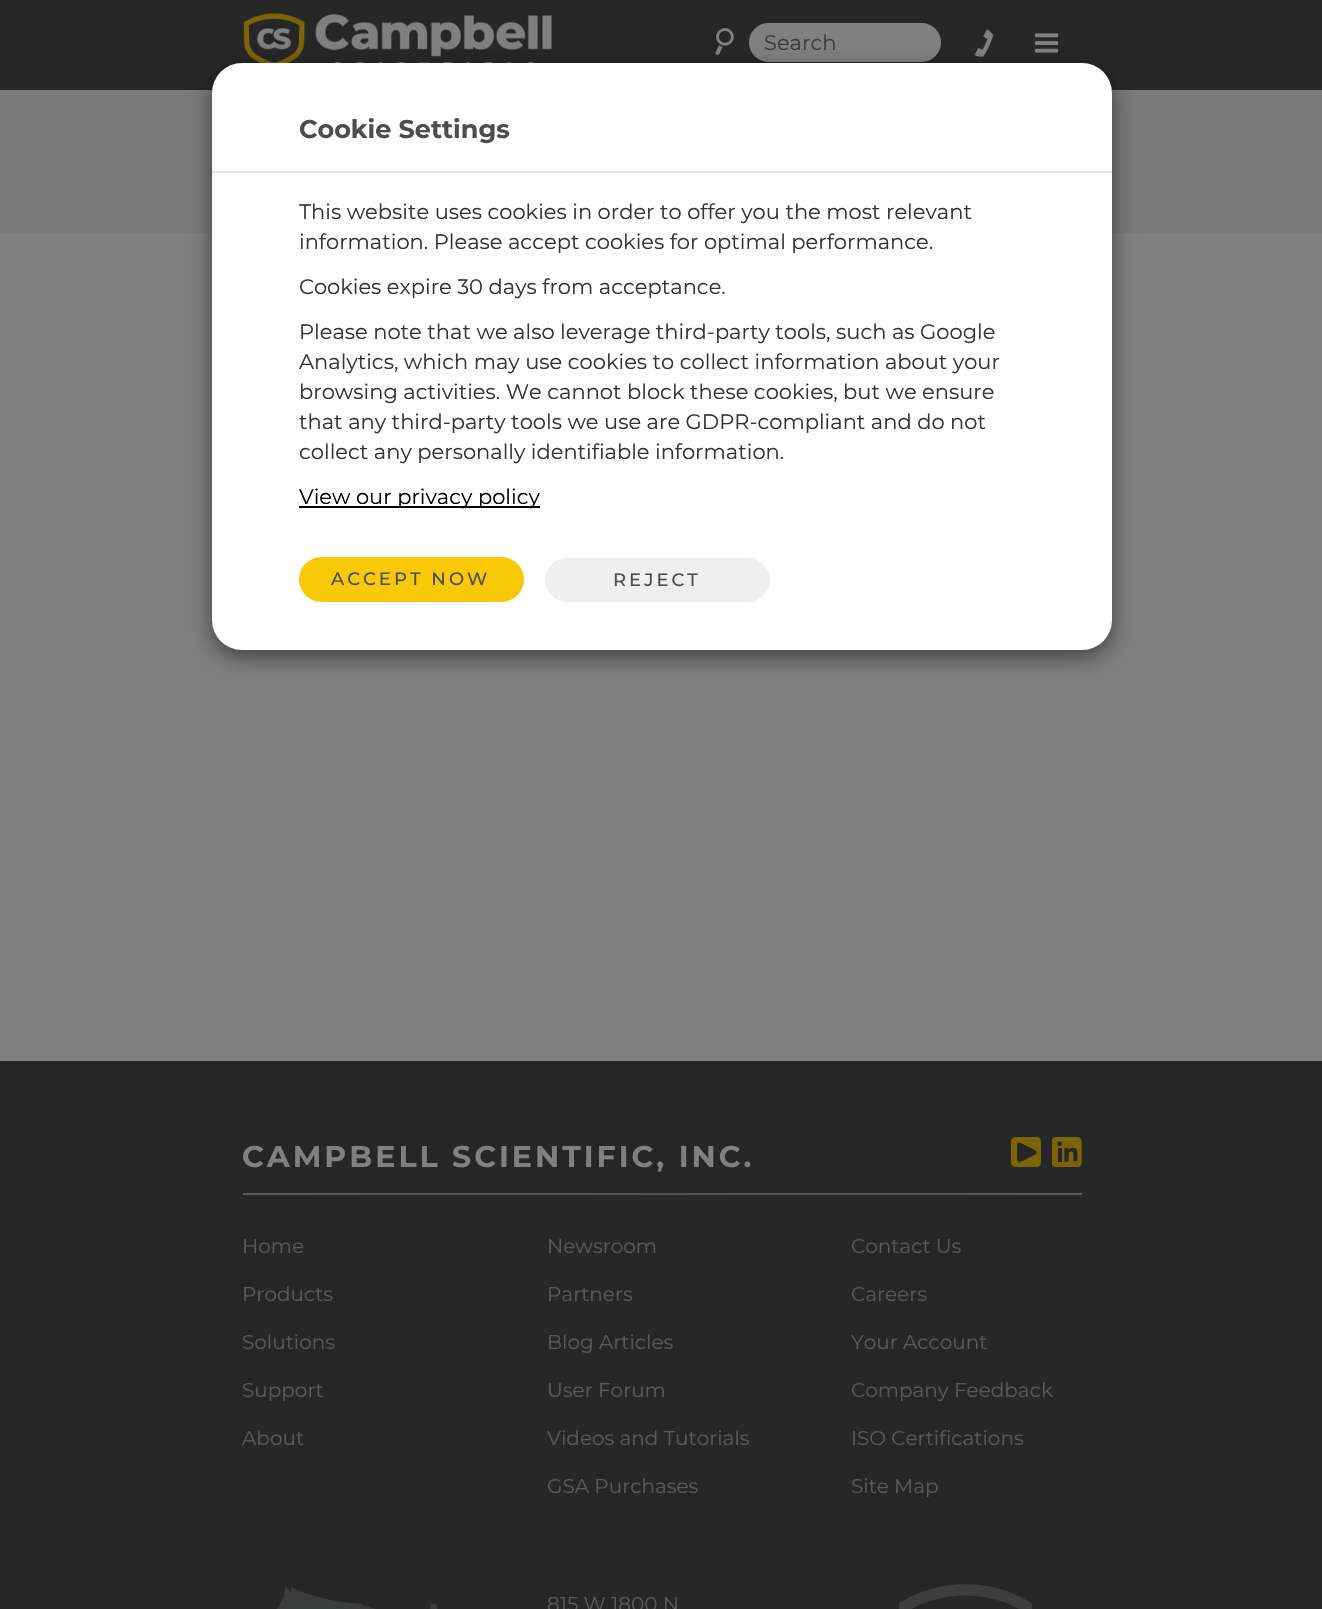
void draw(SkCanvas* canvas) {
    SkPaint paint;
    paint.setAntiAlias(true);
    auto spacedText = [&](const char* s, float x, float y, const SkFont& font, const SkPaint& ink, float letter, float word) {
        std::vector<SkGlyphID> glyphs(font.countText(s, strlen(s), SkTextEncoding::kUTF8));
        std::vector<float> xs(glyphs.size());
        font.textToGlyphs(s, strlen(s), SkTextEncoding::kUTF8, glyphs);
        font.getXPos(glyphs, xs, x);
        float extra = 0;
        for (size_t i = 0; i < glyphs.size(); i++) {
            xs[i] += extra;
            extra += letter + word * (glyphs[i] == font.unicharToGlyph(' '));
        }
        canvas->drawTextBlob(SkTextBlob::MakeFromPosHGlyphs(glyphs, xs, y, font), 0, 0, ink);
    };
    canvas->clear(0xFF808080);
    paint.setColor(0xFF272727);
    canvas->drawRect(SkRect::MakeXYWH(0, 0, 1322, 90), paint);
    canvas->drawImageRect(SkImages::DeferredFromEncodedData(SkData::MakeFromFileName("img1.png")), SkRect::MakeXYWH(243, 13, 309, 50), SkSamplingOptions());
    canvas->drawImageRect(SkImages::DeferredFromEncodedData(SkData::MakeFromFileName("img2.png")), SkRect::MakeXYWH(715, 28, 19, 27), SkSamplingOptions());
    paint.setColor(0xFF808080);
    canvas->drawRoundRect(SkRect::MakeXYWH(749, 23, 192, 39), 19.5f, 19.5f, paint);
    SkFont font1(fontMgr->matchFamilyStyle("Montserrat", SkFontStyle::Normal()), 21);
    font1.setSubpixel(true);
    paint.setColor(0xFF3B3B3B);
    canvas->drawString("Search", 764, 50, font1, paint);
    canvas->drawImageRect(SkImages::DeferredFromEncodedData(SkData::MakeFromFileName("img3.png")), SkRect::MakeXYWH(974, 29, 20, 28), SkSamplingOptions());
    canvas->drawImageRect(SkImages::DeferredFromEncodedData(SkData::MakeFromFileName("img4.png")), SkRect::MakeXYWH(1035, 33, 24, 20), SkSamplingOptions());
    paint.setColor(0xFF7A7A7A);
    canvas->drawRect(SkRect::MakeXYWH(0, 90, 1322, 143), paint);
    paint.setColor(0x80000000);
    paint.setMaskFilter(SkMaskFilter::MakeBlur(kNormal_SkBlurStyle, 11));
    canvas->drawRoundRect(SkRect::MakeXYWH(212, 71, 900, 586), 30, 30, paint);
    paint.setMaskFilter(nullptr);
    paint.setColor(0xFFFFFFFF);
    canvas->drawRoundRect(SkRect::MakeXYWH(212, 63, 900, 587), 30, 30, paint);
    paint.setColor(0xFFE5E5E5);
    canvas->drawRect(SkRect::MakeXYWH(212, 171, 900, 2), paint);
    SkFont font2(fontMgr->matchFamilyStyle("Montserrat", SkFontStyle::Bold()), 25.5f);
    font2.setSubpixel(true);
    paint.setColor(0xFF4D4D4D);
    canvas->drawString("Cookie Settings", 299, 138, font2, paint);
    paint.setColor(0xFF333333);
    canvas->drawString("This website uses cookies in order to offer you the most relevant", 299, 219, font1, paint);
    canvas->drawString("information. Please accept cookies for optimal performance.", 299, 249, font1, paint);
    canvas->drawString("Cookies expire 30 days from acceptance.", 299, 294, font1, paint);
    canvas->drawString("Please note that we also leverage third-party tools, such as Google", 299, 339, font1, paint);
    canvas->drawString("Analytics, which may use cookies to collect information about your", 299, 369, font1, paint);
    canvas->drawString("browsing activities. We cannot block these cookies, but we ensure", 299, 399, font1, paint);
    canvas->drawString("that any third-party tools we use are GDPR-compliant and do not", 299, 429, font1, paint);
    canvas->drawString("collect any personally identifiable information.", 299, 459, font1, paint);
    paint.setColor(0xFF000000);
    canvas->drawRect(SkRect::MakeXYWH(299, 506, 241, 2), paint);
    canvas->drawString("View our privacy policy", 299, 504, font1, paint);
    paint.setColor(0xFFF9C908);
    canvas->drawRoundRect(SkRect::MakeXYWH(299, 557, 225, 45), 22.5f, 22.5f, paint);
    SkFont font3(fontMgr->matchFamilyStyle("Montserrat", SkFontStyle(500, SkFontStyle::kNormal_Width, SkFontStyle::kUpright_Slant)), 18);
    font3.setSubpixel(true);
    paint.setColor(0xFF4D4D4D);
    spacedText("ACCEPT NOW", 331, 585, font3, paint, 3, 0);
    paint.setColor(0xFFEFEFEF);
    canvas->drawRoundRect(SkRect::MakeXYWH(545, 558, 225, 44), 22, 22, paint);
    paint.setColor(0xFF4D4D4D);
    spacedText("REJECT", 613, 586, font3, paint, 3, 0);
    paint.setColor(0xFF272727);
    canvas->drawRect(SkRect::MakeXYWH(0, 1061, 1322, 548), paint);
    SkFont font4(fontMgr->matchFamilyStyle("Montserrat", SkFontStyle::Bold()), 30);
    font4.setSubpixel(true);
    paint.setColor(0xFF808080);
    spacedText("CAMPBELL SCIENTIFIC, INC.", 242, 1167, font4, paint, 3, 0);
    canvas->drawImageRect(SkImages::DeferredFromEncodedData(SkData::MakeFromFileName("img5.png")), SkRect::MakeXYWH(1011, 1137, 30, 30), SkSamplingOptions());
    canvas->drawImageRect(SkImages::DeferredFromEncodedData(SkData::MakeFromFileName("img6.png")), SkRect::MakeXYWH(1052, 1137, 30, 30), SkSamplingOptions());
    {
        const SkColor colors[] = {0xFF5A5A5A, 0xFF515151, 0xFF5A5A5A};
        const float stops[] = {0, 0.5f, 1};
        const SkPoint ends[] = {{243, 1193}, {1082, 1193}};
        paint.setShader(SkGradientShader::MakeLinear(ends, colors, stops, 3, SkTileMode::kClamp));
        paint.setAlpha(255);
    }
    canvas->drawRect(SkRect::MakeXYWH(243, 1193, 839, 2), paint);
    SkFont font5(fontMgr->matchFamilyStyle("Montserrat", SkFontStyle::Normal()), 20);
    font5.setSubpixel(true);
    paint.setShader(nullptr);
    paint.setColor(0xFF5A5A5A);
    canvas->drawString("Home", 242, 1253, font5, paint);
    canvas->drawString("Products", 242, 1301, font5, paint);
    canvas->drawString("Solutions", 242, 1349, font5, paint);
    canvas->drawString("Support", 242, 1397, font5, paint);
    canvas->drawString("About", 242, 1445, font5, paint);
    canvas->drawString("Newsroom", 547, 1253, font5, paint);
    canvas->drawString("Partners", 547, 1301, font5, paint);
    canvas->drawString("Blog Articles", 547, 1349, font5, paint);
    canvas->drawString("User Forum", 547, 1397, font5, paint);
    canvas->drawString("Videos and Tutorials", 547, 1445, font5, paint);
    canvas->drawString("GSA Purchases", 547, 1493, font5, paint);
    canvas->drawString("Contact Us", 851, 1253, font5, paint);
    canvas->drawString("Careers", 851, 1301, font5, paint);
    canvas->drawString("Your Account", 851, 1349, font5, paint);
    canvas->drawString("Company Feedback", 851, 1397, font5, paint);
    canvas->drawString("ISO Certifications", 851, 1445, font5, paint);
    canvas->drawString("Site Map", 851, 1493, font5, paint);
    canvas->drawImageRect(SkImages::DeferredFromEncodedData(SkData::MakeFromFileName("img7.png")), SkRect::MakeXYWH(277, 1587, 161, 22), SkSamplingOptions());
    canvas->drawString("815 W 1800 N", 547, 1611, font5, paint);
    canvas->drawImageRect(SkImages::DeferredFromEncodedData(SkData::MakeFromFileName("img8.png")), SkRect::MakeXYWH(899, 1584, 133, 25), SkSamplingOptions());
}
